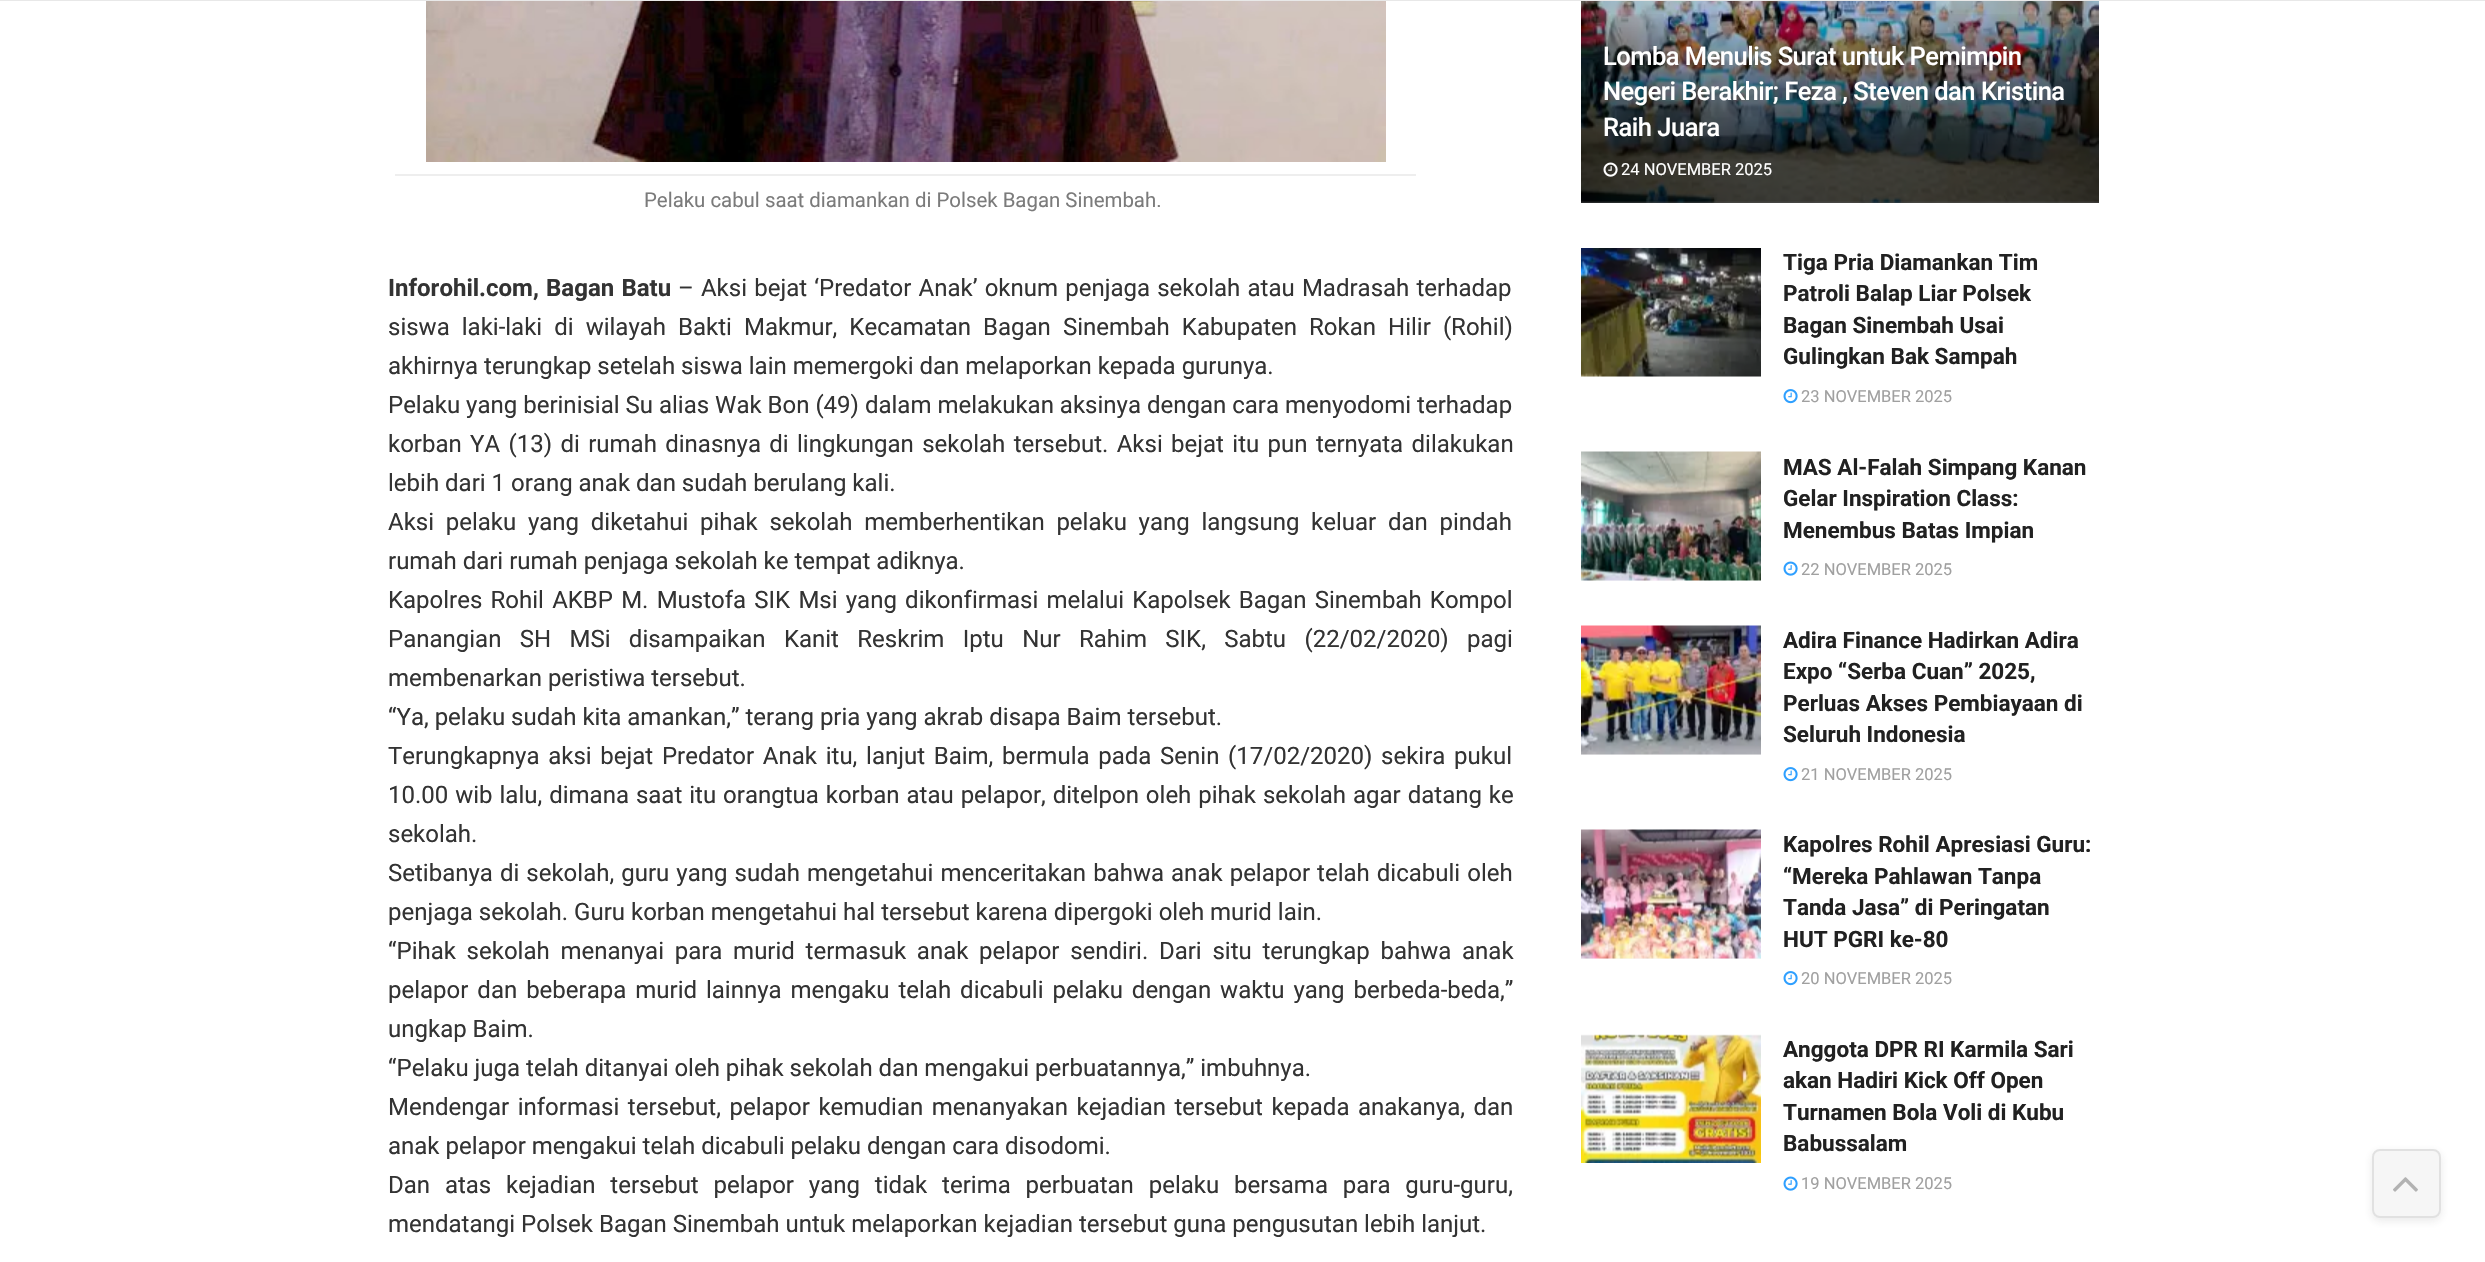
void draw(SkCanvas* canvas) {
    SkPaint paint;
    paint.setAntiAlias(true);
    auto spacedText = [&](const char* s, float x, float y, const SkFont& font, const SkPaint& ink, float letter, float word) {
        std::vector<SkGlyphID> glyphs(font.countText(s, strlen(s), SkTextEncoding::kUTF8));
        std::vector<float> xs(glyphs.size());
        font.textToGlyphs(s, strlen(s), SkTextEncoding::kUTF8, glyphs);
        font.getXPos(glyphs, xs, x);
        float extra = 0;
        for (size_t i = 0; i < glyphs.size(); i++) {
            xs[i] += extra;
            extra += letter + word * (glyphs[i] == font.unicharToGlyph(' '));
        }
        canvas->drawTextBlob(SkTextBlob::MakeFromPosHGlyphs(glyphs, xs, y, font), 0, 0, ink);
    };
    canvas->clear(0xFFFFFFFF);
    paint.setColor(0xFFE8E8E8);
    canvas->drawRect(SkRect::MakeXYWH(0, 0, 2485, 1), paint);
    paint.setColor(0xFFEEEEEE);
    canvas->drawRect(SkRect::MakeXYWH(395, 174, 1021, 2), paint);
    canvas->drawImageRect(SkImages::DeferredFromEncodedData(SkData::MakeFromFileName("img1.png")), SkRect::MakeXYWH(426, 1, 960, 161), SkSamplingOptions());
    SkFont font1(fontMgr->matchFamilyStyle("Roboto", SkFontStyle::Normal()), 20.4f);
    font1.setSubpixel(true);
    paint.setColor(0xFF7B7B7B);
    canvas->drawString("Pelaku cabul saat diamankan di Polsek Bagan Sinembah.", 644, 207, font1, paint);
    SkFont font2(fontMgr->matchFamilyStyle("Roboto", SkFontStyle::Bold()), 24);
    font2.setSubpixel(true);
    paint.setColor(0xFF333333);
    spacedText("Inforohil.com, Bagan Batu", 388, 296, font2, paint, 0, 1.25f);
    SkFont font3(fontMgr->matchFamilyStyle("Roboto", SkFontStyle::Normal()), 24);
    font3.setSubpixel(true);
    spacedText("– Aksi bejat ‘Predator Anak’ oknum penjaga sekolah atau Madrasah terhadap", 678, 296, font3, paint, 0, 1.25f);
    spacedText("siswa laki-laki di wilayah Bakti Makmur, Kecamatan Bagan Sinembah Kabupaten Rokan Hilir (Rohil)", 388, 335, font3, paint, 0, 6.1f);
    canvas->drawString("akhirnya terungkap setelah siswa lain memergoki dan melaporkan kepada gurunya.", 388, 374, font3, paint);
    canvas->drawString("Pelaku yang berinisial Su alias Wak Bon (49) dalam melakukan aksinya dengan cara menyodomi terhadap", 388, 413, font3, paint);
    spacedText("korban YA (13) di rumah dinasnya di lingkungan sekolah tersebut. Aksi bejat itu pun ternyata dilakukan", 388, 452, font3, paint, 0, 2.4f);
    canvas->drawString("lebih dari 1 orang anak dan sudah berulang kali.", 388, 491, font3, paint);
    spacedText("Aksi pelaku yang diketahui pihak sekolah memberhentikan pelaku yang langsung keluar dan pindah", 388, 530, font3, paint, 0, 5.75f);
    canvas->drawString("rumah dari rumah penjaga sekolah ke tempat adiknya.", 388, 569, font3, paint);
    spacedText("Kapolres Rohil AKBP M. Mustofa SIK Msi yang dikonfirmasi melalui Kapolsek Bagan Sinembah Kompol", 388, 608, font3, paint, 0, 2.25f);
    spacedText("Panangian SH MSi disampaikan Kanit Reskrim Iptu Nur Rahim SIK, Sabtu (22/02/2020) pagi", 388, 647, font3, paint, 0, 12.4f);
    canvas->drawString("membenarkan peristiwa tersebut.", 388, 686, font3, paint);
    canvas->drawString("“Ya, pelaku sudah kita amankan,” terang pria yang akrab disapa Baim tersebut.", 388, 725, font3, paint);
    spacedText("Terungkapnya aksi bejat Predator Anak itu, lanjut Baim, bermula pada Senin (17/02/2020) sekira pukul", 388, 764, font3, paint, 0, 2.75f);
    spacedText("10.00 wib lalu, dimana saat itu orangtua korban atau pelapor, ditelpon oleh pihak sekolah agar datang ke", 388, 803, font3, paint, 0, 1);
    canvas->drawString("sekolah.", 388, 842, font3, paint);
    spacedText("Setibanya di sekolah, guru yang sudah mengetahui menceritakan bahwa anak pelapor telah dicabuli oleh", 388, 881, font3, paint, 0, 1.1f);
    canvas->drawString("penjaga sekolah. Guru korban mengetahui hal tersebut karena dipergoki oleh murid lain.", 388, 920, font3, paint);
    spacedText("“Pihak sekolah menanyai para murid termasuk anak pelapor sendiri. Dari situ terungkap bahwa anak", 388, 959, font3, paint, 0, 4.75f);
    spacedText("pelapor dan beberapa murid lainnya mengaku telah dicabuli pelaku dengan waktu yang berbeda-beda,”", 388, 998, font3, paint, 0, 3);
    canvas->drawString("ungkap Baim.", 388, 1037, font3, paint);
    canvas->drawString("“Pelaku juga telah ditanyai oleh pihak sekolah dan mengakui perbuatannya,” imbuhnya.", 388, 1076, font3, paint);
    spacedText("Mendengar informasi tersebut, pelapor kemudian menanyakan kejadian tersebut kepada anakanya, dan", 388, 1115, font3, paint, 0, 2.6f);
    canvas->drawString("anak pelapor mengakui telah dicabuli pelaku dengan cara disodomi.", 388, 1154, font3, paint);
    spacedText("Dan atas kejadian tersebut pelapor yang tidak terima perbuatan pelaku bersama para guru-guru,", 388, 1193, font3, paint, 0, 8.9f);
    canvas->drawString("mendatangi Polsek Bagan Sinembah untuk melaporkan kejadian tersebut guna pengusutan lebih lanjut.", 388, 1232, font3, paint);
    paint.setColor(0xFFF7F7F7);
    canvas->drawRect(SkRect::MakeXYWH(1581, 201, 518, 2), paint);
    canvas->drawImageRect(SkImages::DeferredFromEncodedData(SkData::MakeFromFileName("img2.png")), SkRect::MakeXYWH(1581, 1, 518, 202), SkSamplingOptions());
    {
        const SkColor colors[] = {0x00000000, 0xA6000000};
        const float stops[] = {0, 0.7f};
        const SkPoint ends[] = {{1840, 9}, {1840, 203}};
        paint.setShader(SkGradientShader::MakeLinear(ends, colors, stops, 2, SkTileMode::kClamp));
        paint.setAlpha(255);
    }
    canvas->drawRect(SkRect::MakeXYWH(1581, 14, 518, 189), paint);
    SkFont font4(fontMgr->matchFamilyStyle("Roboto", SkFontStyle(500, SkFontStyle::kNormal_Width, SkFontStyle::kUpright_Slant)), 25.5f);
    font4.setSubpixel(true);
    paint.setShader(nullptr);
    paint.setColor(0xFFFFFFFF);
    spacedText("Lomba Menulis Surat untuk Pemimpin", 1603, 65, font4, paint, -0.5f, 0);
    spacedText("Negeri Berakhir; Feza , Steven dan Kristina", 1603, 100, font4, paint, -0.5f, 0);
    spacedText("Raih Juara", 1603, 136, font4, paint, -0.5f, 0);
    canvas->drawImageRect(SkImages::DeferredFromEncodedData(SkData::MakeFromFileName("img3.png")), SkRect::MakeXYWH(1603, 162, 15, 15), SkSamplingOptions());
    SkFont font5(fontMgr->matchFamilyStyle("Roboto", SkFontStyle::Normal()), 16.5f);
    font5.setSubpixel(true);
    canvas->drawString("24 NOVEMBER 2025", 1621, 175, font5, paint);
    paint.setColor(0xFFF7F7F7);
    canvas->drawRect(SkRect::MakeXYWH(1581, 376, 180, 1), paint);
    canvas->drawImageRect(SkImages::DeferredFromEncodedData(SkData::MakeFromFileName("img4.png")), SkRect::MakeXYWH(1581, 248, 180, 129), SkSamplingOptions());
    SkFont font6(fontMgr->matchFamilyStyle("Roboto", SkFontStyle::Bold()), 22.5f);
    font6.setSubpixel(true);
    paint.setColor(0xFF212121);
    canvas->drawString("Tiga Pria Diamankan Tim", 1783, 270, font6, paint);
    canvas->drawString("Patroli Balap Liar Polsek", 1783, 301, font6, paint);
    canvas->drawString("Bagan Sinembah Usai", 1783, 333, font6, paint);
    canvas->drawString("Gulingkan Bak Sampah", 1783, 364, font6, paint);
    canvas->drawImageRect(SkImages::DeferredFromEncodedData(SkData::MakeFromFileName("img5.png")), SkRect::MakeXYWH(1783, 389, 15, 15), SkSamplingOptions());
    paint.setColor(0xFFA0A0A0);
    canvas->drawString("23 NOVEMBER 2025", 1801, 402, font5, paint);
    paint.setColor(0xFFF7F7F7);
    canvas->drawRect(SkRect::MakeXYWH(1581, 580, 180, 1), paint);
    canvas->drawImageRect(SkImages::DeferredFromEncodedData(SkData::MakeFromFileName("img6.png")), SkRect::MakeXYWH(1581, 451, 180, 130), SkSamplingOptions());
    paint.setColor(0xFF212121);
    canvas->drawString("MAS Al-Falah Simpang Kanan", 1783, 475, font6, paint);
    canvas->drawString("Gelar Inspiration Class:", 1783, 506, font6, paint);
    canvas->drawString("Menembus Batas Impian", 1783, 538, font6, paint);
    canvas->drawImageRect(SkImages::DeferredFromEncodedData(SkData::MakeFromFileName("img7.png")), SkRect::MakeXYWH(1783, 561, 15, 15), SkSamplingOptions());
    paint.setColor(0xFFA0A0A0);
    canvas->drawString("22 NOVEMBER 2025", 1801, 575, font5, paint);
    paint.setColor(0xFFF7F7F7);
    canvas->drawRect(SkRect::MakeXYWH(1581, 754, 180, 1), paint);
    canvas->drawImageRect(SkImages::DeferredFromEncodedData(SkData::MakeFromFileName("img8.png")), SkRect::MakeXYWH(1581, 625, 180, 130), SkSamplingOptions());
    paint.setColor(0xFF212121);
    canvas->drawString("Adira Finance Hadirkan Adira", 1783, 648, font6, paint);
    canvas->drawString("Expo “Serba Cuan” 2025,", 1783, 679, font6, paint);
    canvas->drawString("Perluas Akses Pembiayaan di", 1783, 711, font6, paint);
    canvas->drawString("Seluruh Indonesia", 1783, 742, font6, paint);
    canvas->drawImageRect(SkImages::DeferredFromEncodedData(SkData::MakeFromFileName("img5.png")), SkRect::MakeXYWH(1783, 767, 15, 15), SkSamplingOptions());
    paint.setColor(0xFFA0A0A0);
    canvas->drawString("21 NOVEMBER 2025", 1801, 780, font5, paint);
    paint.setColor(0xFFF7F7F7);
    canvas->drawRect(SkRect::MakeXYWH(1581, 958, 180, 1), paint);
    canvas->drawImageRect(SkImages::DeferredFromEncodedData(SkData::MakeFromFileName("img9.png")), SkRect::MakeXYWH(1581, 829, 180, 130), SkSamplingOptions());
    paint.setColor(0xFF212121);
    canvas->drawString("Kapolres Rohil Apresiasi Guru:", 1783, 852, font6, paint);
    canvas->drawString("“Mereka Pahlawan Tanpa", 1783, 884, font6, paint);
    canvas->drawString("Tanda Jasa” di Peringatan", 1783, 915, font6, paint);
    canvas->drawString("HUT PGRI ke-80", 1783, 947, font6, paint);
    canvas->drawImageRect(SkImages::DeferredFromEncodedData(SkData::MakeFromFileName("img5.png")), SkRect::MakeXYWH(1783, 971, 15, 15), SkSamplingOptions());
    paint.setColor(0xFFA0A0A0);
    canvas->drawString("20 NOVEMBER 2025", 1801, 984, font5, paint);
    paint.setColor(0xFFF7F7F7);
    canvas->drawRect(SkRect::MakeXYWH(1581, 1035, 180, 1), paint);
    canvas->drawImageRect(SkImages::DeferredFromEncodedData(SkData::MakeFromFileName("img10.png")), SkRect::MakeXYWH(1581, 1034, 180, 129), SkSamplingOptions());
    paint.setColor(0xFF212121);
    canvas->drawString("Anggota DPR RI Karmila Sari", 1783, 1057, font6, paint);
    canvas->drawString("akan Hadiri Kick Off Open", 1783, 1088, font6, paint);
    canvas->drawString("Turnamen Bola Voli di Kubu", 1783, 1120, font6, paint);
    canvas->drawString("Babussalam", 1783, 1151, font6, paint);
    canvas->drawImageRect(SkImages::DeferredFromEncodedData(SkData::MakeFromFileName("img7.png")), SkRect::MakeXYWH(1783, 1176, 15, 15), SkSamplingOptions());
    paint.setColor(0xFFA0A0A0);
    canvas->drawString("19 NOVEMBER 2025", 1801, 1189, font5, paint);
    canvas->save();
    canvas->clipPath(SkPathBuilder(SkPathFillType::kEvenOdd).moveTo(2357, 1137).lineTo(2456, 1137).lineTo(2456, 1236).lineTo(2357, 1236).close().moveTo(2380, 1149).lineTo(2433, 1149).cubicTo(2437.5f, 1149, 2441, 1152.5f, 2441, 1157).lineTo(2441, 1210).cubicTo(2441, 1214.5f, 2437.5f, 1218, 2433, 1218).lineTo(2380, 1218).cubicTo(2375.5f, 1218, 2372, 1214.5f, 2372, 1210).lineTo(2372, 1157).cubicTo(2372, 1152.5f, 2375.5f, 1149, 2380, 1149).close().detach(), true);
    paint.setColor(0x1A333333);
    paint.setMaskFilter(SkMaskFilter::MakeBlur(kNormal_SkBlurStyle, 4.5f));
    canvas->drawRoundRect(SkRect::MakeXYWH(2372, 1152, 69, 69), 8, 8, paint);
    paint.setMaskFilter(nullptr);
    canvas->restore();
    paint.setColor(0x26C4C4C4);
    canvas->drawRoundRect(SkRect::MakeXYWH(2372, 1149, 69, 69), 8, 8, paint);
    paint.setStyle(SkPaint::kStroke_Style);
    paint.setStrokeWidth(2);
    paint.setColor(0x1C333333);
    canvas->drawRoundRect(SkRect::MakeXYWH(2373, 1150, 67, 67), 7, 7, paint);
    canvas->drawImageRect(SkImages::DeferredFromEncodedData(SkData::MakeFromFileName("img11.png")), SkRect::MakeXYWH(2393, 1177, 25, 15), SkSamplingOptions());
}
